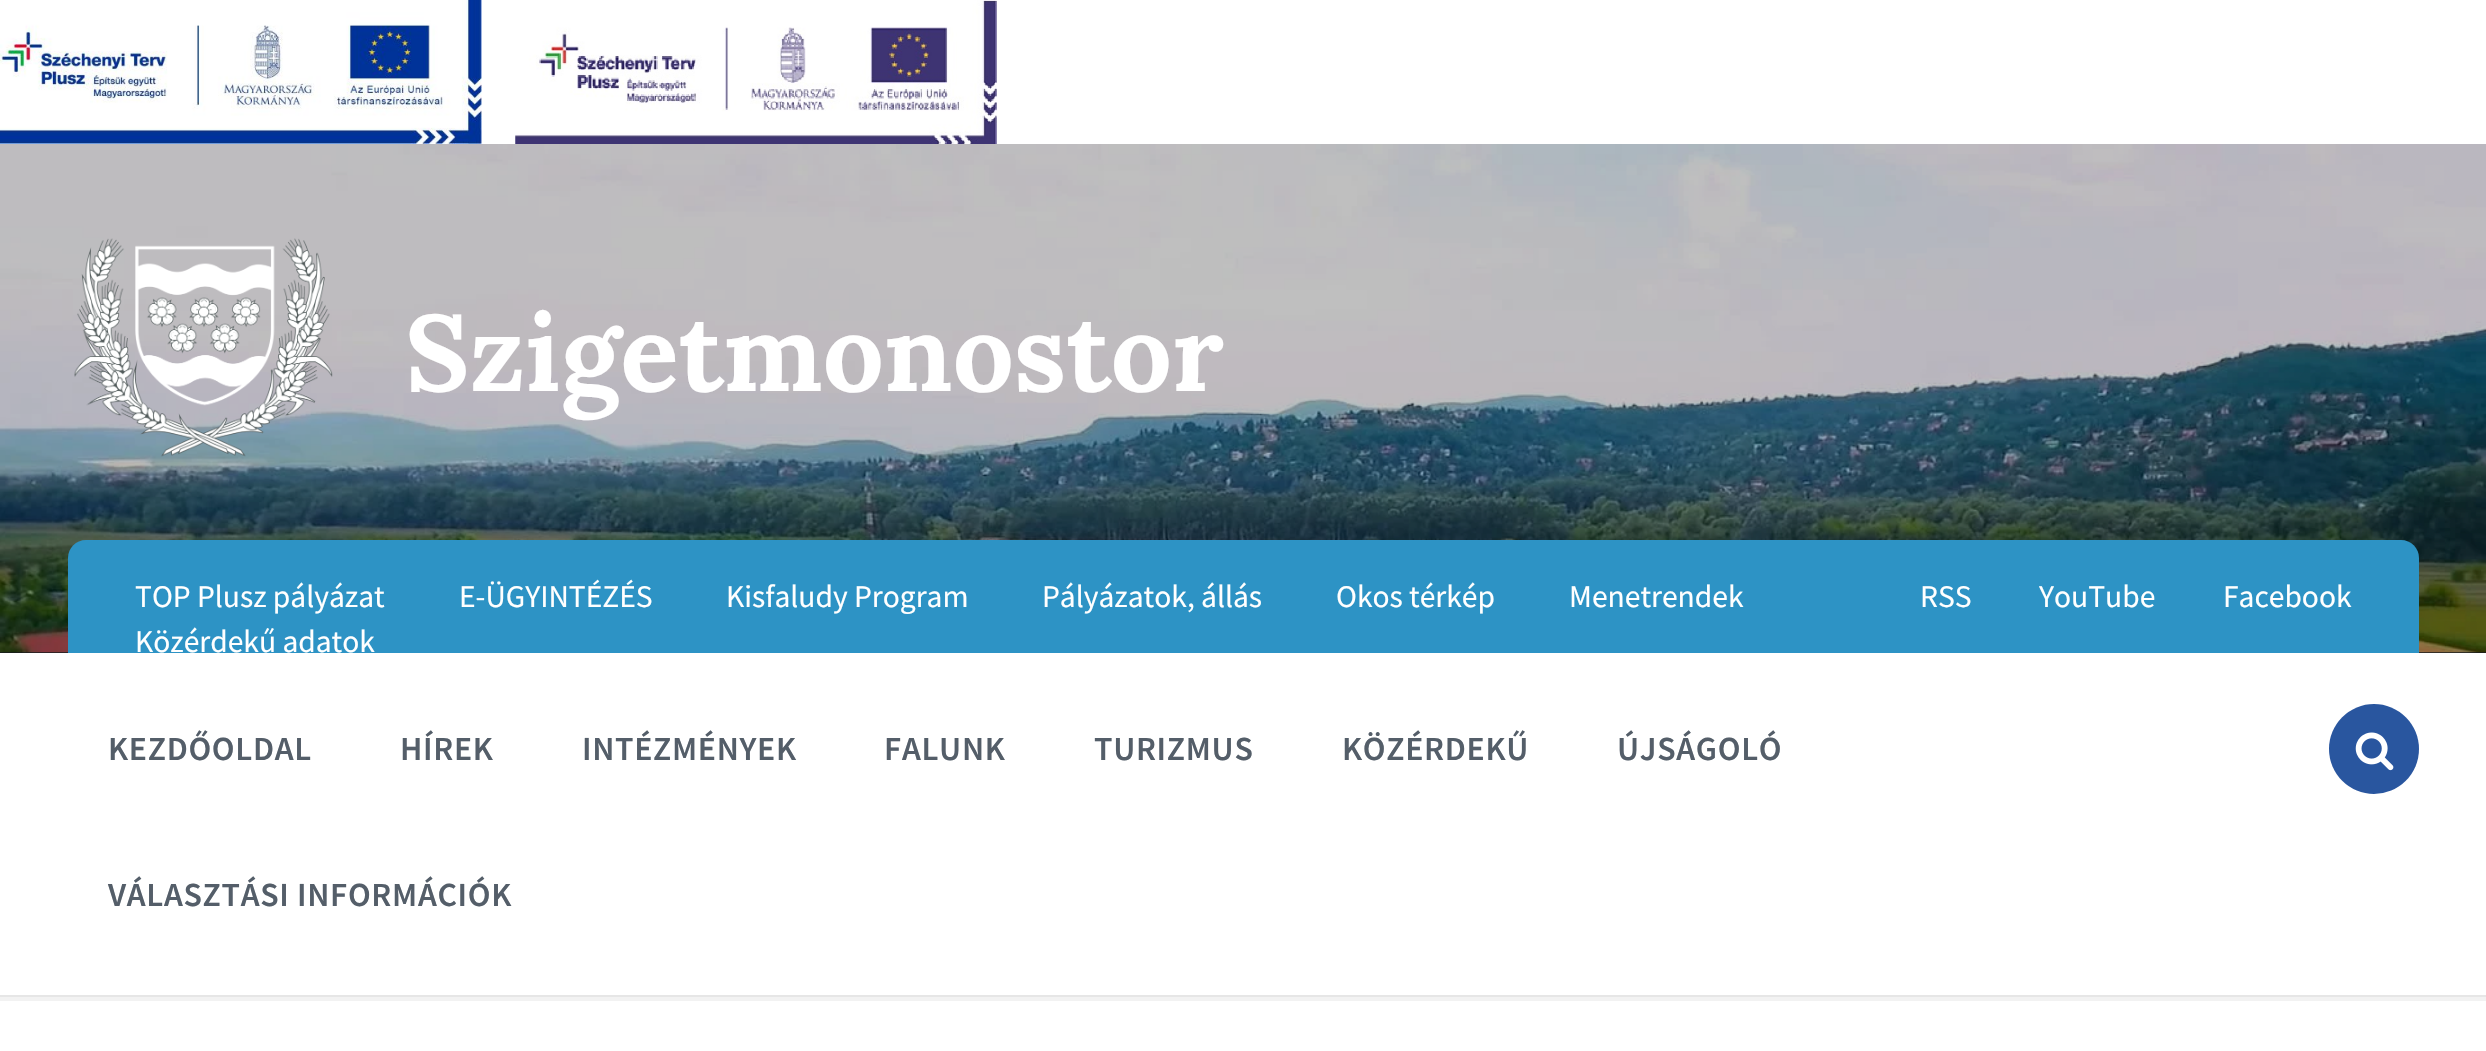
void draw(SkCanvas* canvas) {
    SkPaint paint;
    paint.setAntiAlias(true);
    auto spacedText = [&](const char* s, float x, float y, const SkFont& font, const SkPaint& ink, float letter, float word) {
        std::vector<SkGlyphID> glyphs(font.countText(s, strlen(s), SkTextEncoding::kUTF8));
        std::vector<float> xs(glyphs.size());
        font.textToGlyphs(s, strlen(s), SkTextEncoding::kUTF8, glyphs);
        font.getXPos(glyphs, xs, x);
        float extra = 0;
        for (size_t i = 0; i < glyphs.size(); i++) {
            xs[i] += extra;
            extra += letter + word * (glyphs[i] == font.unicharToGlyph(' '));
        }
        canvas->drawTextBlob(SkTextBlob::MakeFromPosHGlyphs(glyphs, xs, y, font), 0, 0, ink);
    };
    canvas->clear(0xFFFFFFFF);
    canvas->drawImageRect(SkImages::DeferredFromEncodedData(SkData::MakeFromFileName("img1.png")), SkRect::MakeXYWH(0, 0, 482, 144), SkSamplingOptions());
    canvas->drawImageRect(SkImages::DeferredFromEncodedData(SkData::MakeFromFileName("img2.png")), SkRect::MakeXYWH(515, 0, 482, 144), SkSamplingOptions());
    paint.setStyle(SkPaint::kStroke_Style);
    paint.setStrokeWidth(5);
    paint.setColor(0xFFF2F2F2);
    canvas->drawRect(SkRect::MakeXYWH(-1.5f, 650.5f, 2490, 348), paint);
    paint.setStyle(SkPaint::kFill_Style);
    paint.setColor(0xFF1E2427);
    canvas->drawRect(SkRect::MakeXYWH(0, 652, 2486, 1), paint);
    canvas->drawImageRect(SkImages::DeferredFromEncodedData(SkData::MakeFromFileName("img3.png")), SkRect::MakeXYWH(0, 144, 2486, 509), SkSamplingOptions());
    paint.setColor(0x40000000);
    canvas->drawRect(SkRect::MakeXYWH(0, 144, 2486, 509), paint);
    canvas->drawImageRect(SkImages::DeferredFromEncodedData(SkData::MakeFromFileName("img4.png")), SkRect::MakeXYWH(74, 238, 259, 219), SkSamplingOptions());
    SkFont font1(fontMgr->matchFamilyStyle("Lora", SkFontStyle::Bold()), 108);
    font1.setSubpixel(true);
    paint.setColor(0xFFFFFFFF);
    canvas->drawString("Szigetmonostor", 405, 391, font1, paint);
    paint.setColor(0xFF2D93C5);
    canvas->drawPath(SkPathBuilder().moveTo(86, 540).lineTo(2401, 540).cubicTo(2411, 540, 2419, 548, 2419, 558).lineTo(2419, 653).lineTo(68, 653).lineTo(68, 558).cubicTo(68, 548, 76, 540, 86, 540).close().detach(), paint);
    SkFont font2(fontMgr->matchFamilyStyle("Source Sans Pro", SkFontStyle::Normal()), 31.5f);
    font2.setSubpixel(true);
    paint.setColor(0xFFFFFFFF);
    canvas->drawString("TOP Plusz pályázat", 135, 607, font2, paint);
    canvas->drawString("E-ÜGYINTÉZÉS", 459, 607, font2, paint);
    canvas->drawString("Kisfaludy Program", 726, 607, font2, paint);
    canvas->drawString("Pályázatok, állás", 1042, 607, font2, paint);
    canvas->drawString("Okos térkép", 1336, 607, font2, paint);
    canvas->drawString("Menetrendek", 1569, 607, font2, paint);
    canvas->drawString("RSS", 1920, 607, font2, paint);
    canvas->drawString("YouTube", 2039, 607, font2, paint);
    canvas->drawString("Facebook", 2223, 607, font2, paint);
    canvas->drawString("Közérdekű adatok", 135, 652, font2, paint);
    canvas->drawRect(SkRect::MakeXYWH(0, 653, 1, 342), paint);
    paint.setColor(0xFFE6E6E6);
    canvas->drawRect(SkRect::MakeXYWH(0, 995, 2486, 2), paint);
    SkFont font3(fontMgr->matchFamilyStyle("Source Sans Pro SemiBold", SkFontStyle(600, SkFontStyle::kNormal_Width, SkFontStyle::kUpright_Slant)), 33.75f);
    font3.setSubpixel(true);
    paint.setColor(0xFF545E69);
    spacedText("KEZDŐOLDAL", 108, 760, font3, paint, 0.7f, 0);
    spacedText("HÍREK", 400, 760, font3, paint, 0.7f, 0);
    spacedText("INTÉZMÉNYEK", 582, 760, font3, paint, 0.7f, 0);
    spacedText("FALUNK", 884, 760, font3, paint, 0.7f, 0);
    spacedText("TURIZMUS", 1094, 760, font3, paint, 0.7f, 0);
    spacedText("KÖZÉRDEKŰ", 1342, 760, font3, paint, 0.7f, 0);
    spacedText("ÚJSÁGOLÓ", 1617, 760, font3, paint, 0.7f, 0);
    spacedText("VÁLASZTÁSI INFORMÁCIÓK", 108, 906, font3, paint, 0.7f, 0);
    paint.setColor(0xFF29569F);
    canvas->drawCircle(2374, 749, 45, paint);
    canvas->drawImageRect(SkImages::DeferredFromEncodedData(SkData::MakeFromFileName("img5.png")), SkRect::MakeXYWH(2355, 732, 39, 39), SkSamplingOptions());
}
